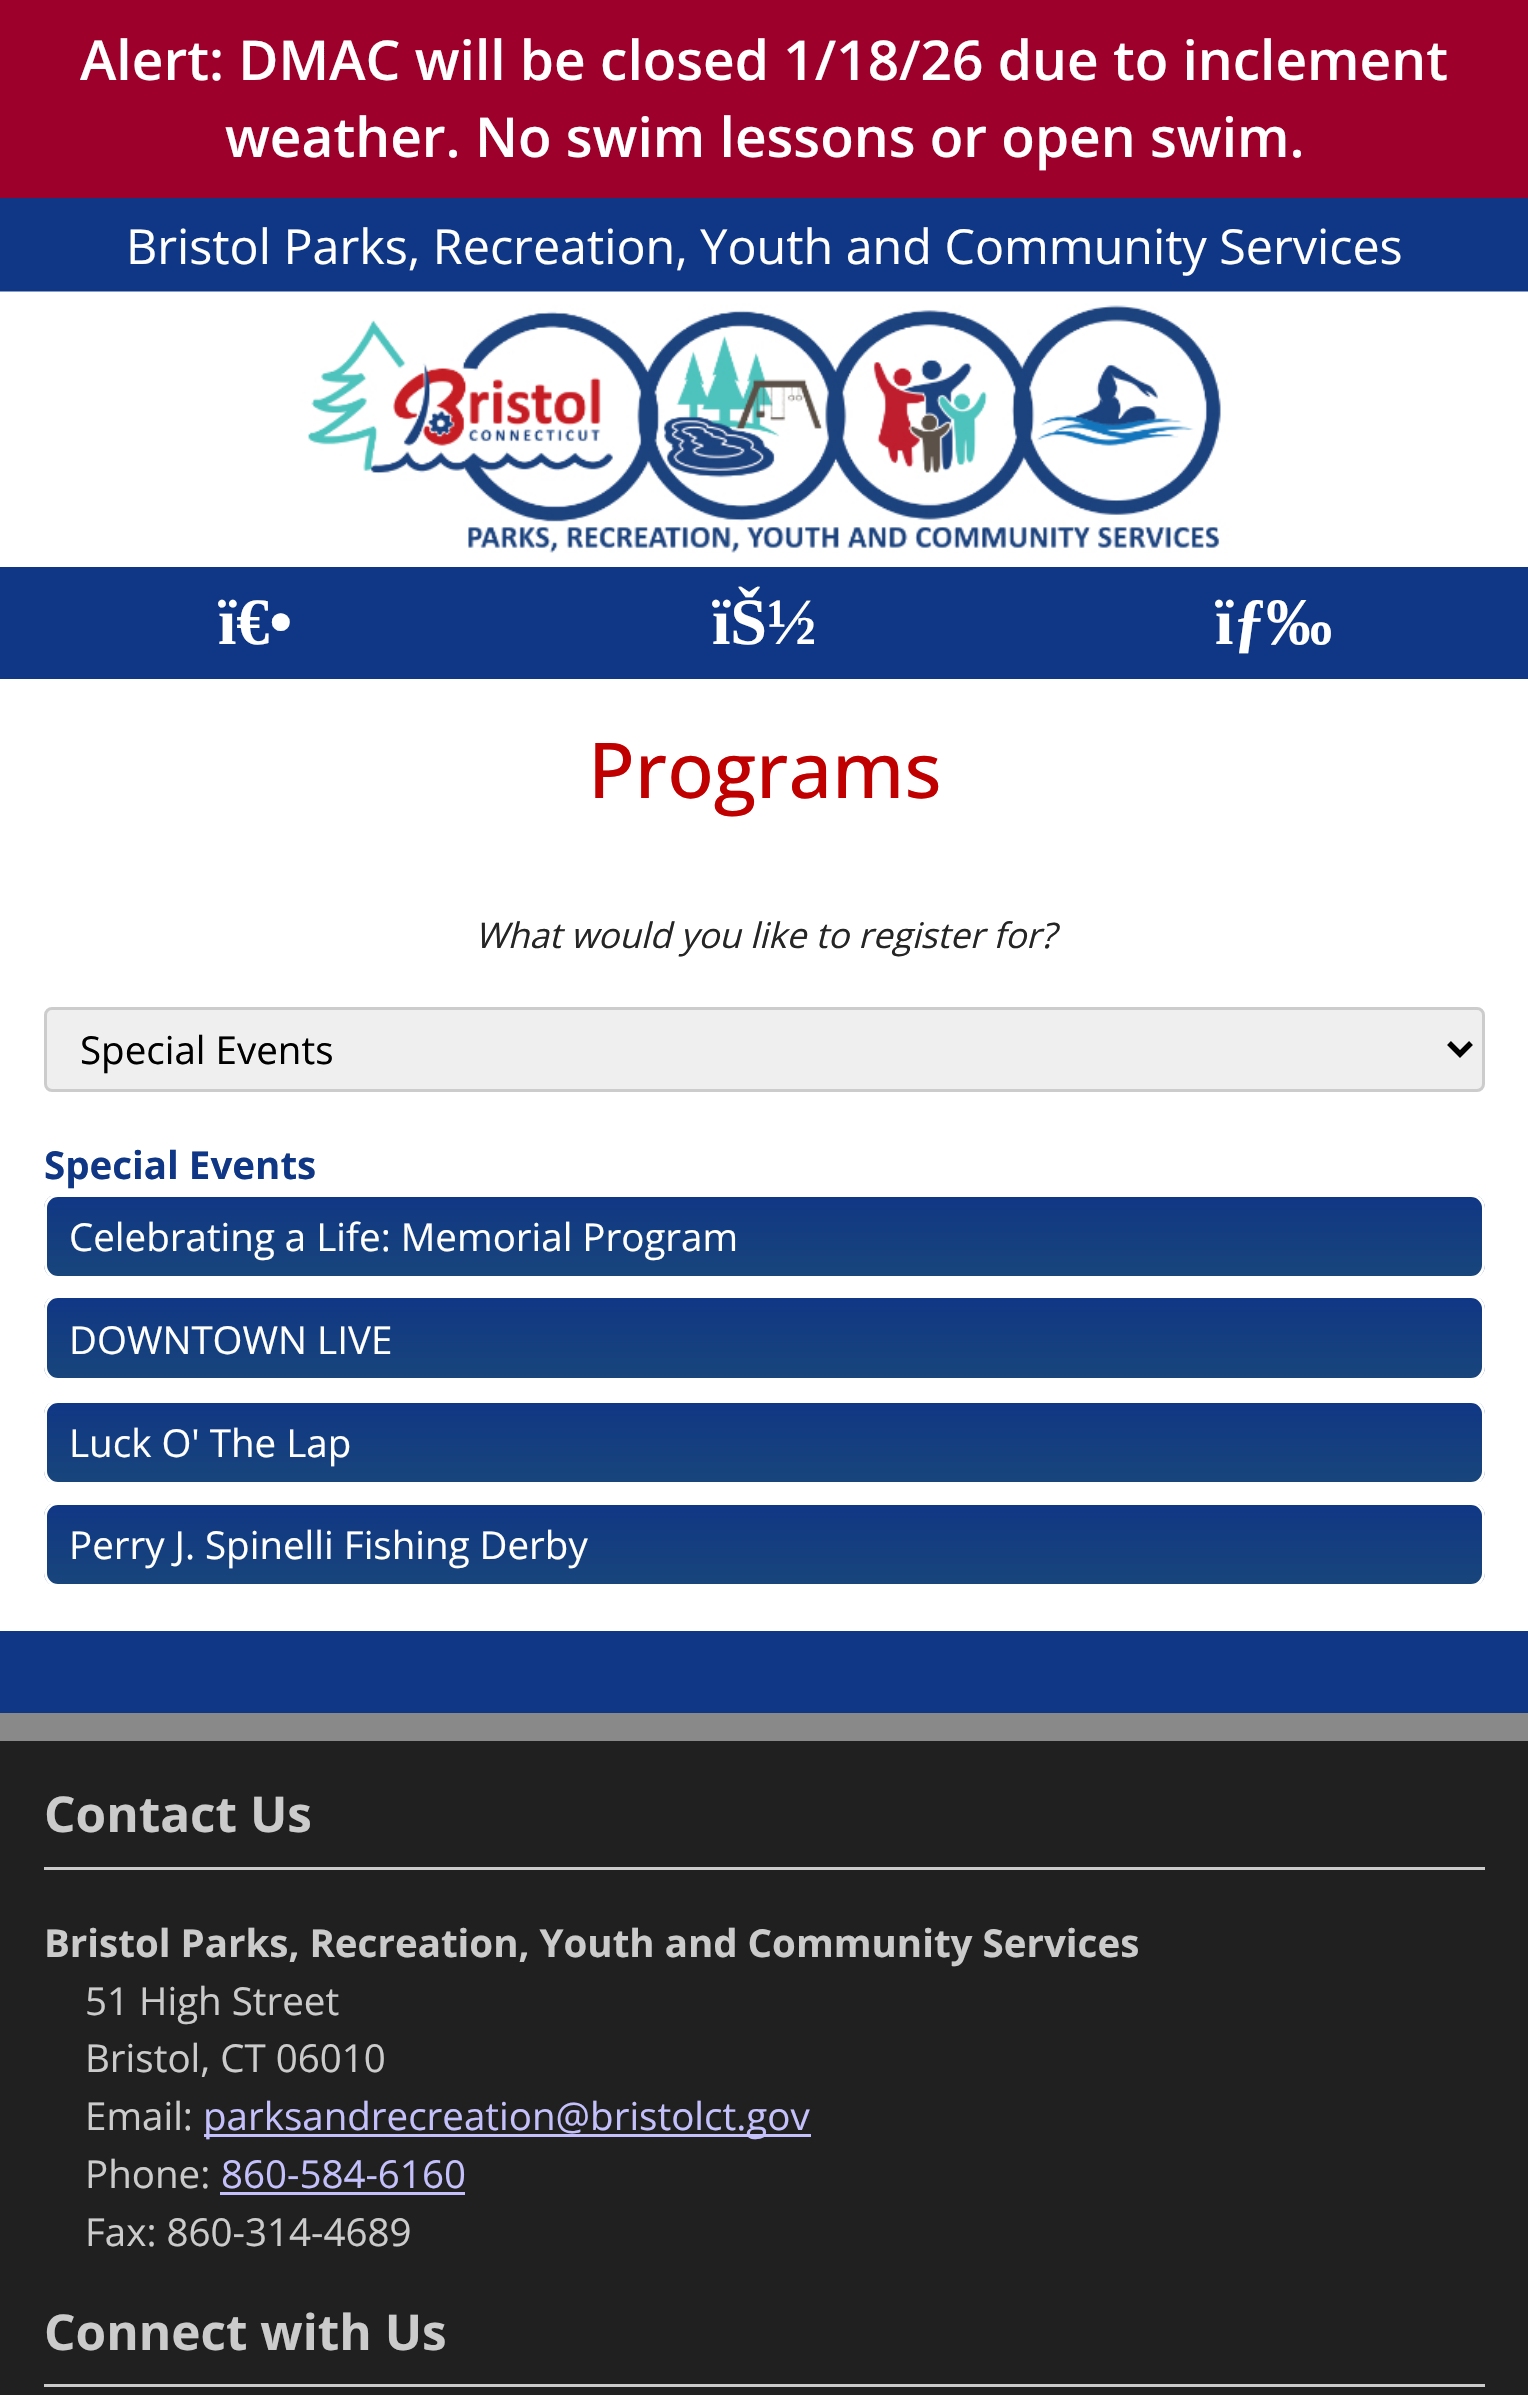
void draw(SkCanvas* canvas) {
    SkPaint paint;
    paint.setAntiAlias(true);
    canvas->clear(0xFF9E002C);
    SkFont font1(fontMgr->matchFamilyStyle("Open Sans", SkFontStyle(600, SkFontStyle::kNormal_Width, SkFontStyle::kUpright_Slant)), 55);
    font1.setSubpixel(true);
    paint.setColor(0xFFFFFFFF);
    canvas->drawString("Alert: DMAC will be closed 1/18/26 due to inclement", 80, 80, font1, paint);
    canvas->drawString("weather. No swim lessons or open swim.", 225, 157, font1, paint);
    canvas->drawRect(SkRect::MakeXYWH(0, 553, 1528, 1078), paint);
    paint.setColor(0xFF103785);
    canvas->drawRect(SkRect::MakeXYWH(0, 198, 1528, 94), paint);
    SkFont font2(fontMgr->matchFamilyStyle("Open Sans", SkFontStyle::Normal()), 48.4f);
    font2.setSubpixel(true);
    paint.setColor(0xFFFFFFFF);
    canvas->drawString("Bristol Parks, Recreation, Youth and Community Services", 126, 264, font2, paint);
    canvas->drawImageRect(SkImages::DeferredFromEncodedData(SkData::MakeFromFileName("img1.png")), SkRect::MakeXYWH(0, 291, 1528, 262), SkSamplingOptions());
    paint.setColor(0xFF103785);
    canvas->drawRect(SkRect::MakeXYWH(0, 567, 1528, 112), paint);
    SkFont font3(fontMgr->matchFamilyStyle("Liberation Serif", SkFontStyle::Bold()), 66);
    font3.setSubpixel(true);
    paint.setColor(0xFFFFFFFF);
    canvas->drawString("ï€•", 218, 644, font3, paint);
    canvas->drawString("ïŠ½", 712, 644, font3, paint);
    canvas->drawString("ïƒ‰", 1215, 644, font3, paint);
    SkFont font4(fontMgr->matchFamilyStyle("Open Sans", SkFontStyle(500, SkFontStyle::kNormal_Width, SkFontStyle::kUpright_Slant)), 77);
    font4.setSubpixel(true);
    paint.setColor(0xFFC00000);
    canvas->drawString("Programs", 588, 798, font4, paint);
    SkFont font5(fontMgr->matchFamilyStyle("Open Sans", SkFontStyle::Italic()), 35.25f);
    font5.setSubpixel(true);
    paint.setColor(0xFF252525);
    canvas->drawString("What would you like to register for?", 475, 948, font5, paint);
    paint.setColor(0xFFEFEFEF);
    canvas->drawRoundRect(SkRect::MakeXYWH(45.5f, 1008.5f, 1438, 82), 6.5f, 6.5f, paint);
    paint.setStyle(SkPaint::kStroke_Style);
    paint.setStrokeWidth(3);
    paint.setColor(0xFFCCCCCC);
    canvas->drawRoundRect(SkRect::MakeXYWH(45.5f, 1008.5f, 1438, 82), 6.5f, 6.5f, paint);
    paint.setStrokeWidth(5.5f);
    paint.setColor(0xFF000000);
    canvas->drawPath(SkPathBuilder().moveTo(1449, 1043).lineTo(1460, 1054).lineTo(1471, 1043).detach(), paint);
    SkFont font6(fontMgr->matchFamilyStyle("Open Sans", SkFontStyle::Normal()), 38.5f);
    font6.setSubpixel(true);
    paint.setStyle(SkPaint::kFill_Style);
    canvas->drawString("Special Events", 80, 1064, font6, paint);
    SkFont font7(fontMgr->matchFamilyStyle("Open Sans", SkFontStyle::Bold()), 38.5f);
    font7.setSubpixel(true);
    paint.setColor(0xFF103785);
    canvas->drawString("Special Events", 44, 1179, font7, paint);
    canvas->save();
    canvas->clipPath(SkPathBuilder().moveTo(58, 1194).lineTo(1471, 1194).cubicTo(1478.5f, 1194, 1485, 1200.5f, 1485, 1208).lineTo(1485, 1265).cubicTo(1485, 1272.5f, 1478.5f, 1279, 1471, 1279).lineTo(58, 1279).cubicTo(50.5f, 1279, 44, 1272.5f, 44, 1265).lineTo(44, 1208).cubicTo(44, 1200.5f, 50.5f, 1194, 58, 1194).close().detach(), true);
    {
        const SkColor colors[] = {0xFF103785, 0xFF18457B};
        const float stops[] = {0, 1};
        const SkPoint ends[] = {{765, 1196}, {765, 1276}};
        paint.setShader(SkGradientShader::MakeLinear(ends, colors, stops, 2, SkTileMode::kClamp));
        paint.setAlpha(255);
    }
    canvas->drawRect(SkRect::MakeXYWH(44, 1196, 1441, 80), paint);
    canvas->restore();
    paint.setStyle(SkPaint::kStroke_Style);
    paint.setStrokeWidth(3);
    paint.setShader(nullptr);
    paint.setColor(0xFFFFFFFF);
    canvas->drawRoundRect(SkRect::MakeXYWH(45.5f, 1195.5f, 1438, 82), 12.5f, 12.5f, paint);
    paint.setStyle(SkPaint::kFill_Style);
    canvas->drawString("Celebrating a Life: Memorial Program", 69, 1251, font6, paint);
    canvas->save();
    canvas->clipPath(SkPathBuilder().moveTo(58, 1295).lineTo(1471, 1295).cubicTo(1478.5f, 1295, 1485, 1301.5f, 1485, 1309).lineTo(1485, 1367).cubicTo(1485, 1374.5f, 1478.5f, 1381, 1471, 1381).lineTo(58, 1381).cubicTo(50.5f, 1381, 44, 1374.5f, 44, 1367).lineTo(44, 1309).cubicTo(44, 1301.5f, 50.5f, 1295, 58, 1295).close().detach(), true);
    {
        const SkColor colors[] = {0xFF103785, 0xFF18457B};
        const float stops[] = {0, 1};
        const SkPoint ends[] = {{765, 1298}, {765, 1378}};
        paint.setShader(SkGradientShader::MakeLinear(ends, colors, stops, 2, SkTileMode::kClamp));
        paint.setAlpha(255);
    }
    canvas->drawRect(SkRect::MakeXYWH(44, 1298, 1441, 80), paint);
    canvas->restore();
    paint.setStyle(SkPaint::kStroke_Style);
    paint.setShader(nullptr);
    paint.setColor(0xFFFFFFFF);
    canvas->drawRoundRect(SkRect::MakeXYWH(45.5f, 1296.5f, 1438, 83), 12.5f, 12.5f, paint);
    paint.setStyle(SkPaint::kFill_Style);
    canvas->drawString("DOWNTOWN LIVE", 69, 1354, font6, paint);
    canvas->save();
    canvas->clipPath(SkPathBuilder().moveTo(58, 1400).lineTo(1471, 1400).cubicTo(1478.5f, 1400, 1485, 1406.5f, 1485, 1414).lineTo(1485, 1471).cubicTo(1485, 1478.5f, 1478.5f, 1485, 1471, 1485).lineTo(58, 1485).cubicTo(50.5f, 1485, 44, 1478.5f, 44, 1471).lineTo(44, 1414).cubicTo(44, 1406.5f, 50.5f, 1400, 58, 1400).close().detach(), true);
    {
        const SkColor colors[] = {0xFF103785, 0xFF18457B};
        const float stops[] = {0, 1};
        const SkPoint ends[] = {{765, 1402}, {765, 1482}};
        paint.setShader(SkGradientShader::MakeLinear(ends, colors, stops, 2, SkTileMode::kClamp));
        paint.setAlpha(255);
    }
    canvas->drawRect(SkRect::MakeXYWH(44, 1403, 1441, 79), paint);
    canvas->restore();
    paint.setStyle(SkPaint::kStroke_Style);
    paint.setShader(nullptr);
    paint.setColor(0xFFFFFFFF);
    canvas->drawRoundRect(SkRect::MakeXYWH(45.5f, 1401.5f, 1438, 82), 12.5f, 12.5f, paint);
    paint.setStyle(SkPaint::kFill_Style);
    canvas->drawString("Luck O' The Lap", 69, 1457, font6, paint);
    canvas->save();
    canvas->clipPath(SkPathBuilder().moveTo(58, 1502).lineTo(1471, 1502).cubicTo(1478.5f, 1502, 1485, 1508.5f, 1485, 1516).lineTo(1485, 1573).cubicTo(1485, 1580.5f, 1478.5f, 1587, 1471, 1587).lineTo(58, 1587).cubicTo(50.5f, 1587, 44, 1580.5f, 44, 1573).lineTo(44, 1516).cubicTo(44, 1508.5f, 50.5f, 1502, 58, 1502).close().detach(), true);
    {
        const SkColor colors[] = {0xFF103785, 0xFF18457B};
        const float stops[] = {0, 1};
        const SkPoint ends[] = {{765, 1504}, {765, 1584}};
        paint.setShader(SkGradientShader::MakeLinear(ends, colors, stops, 2, SkTileMode::kClamp));
        paint.setAlpha(255);
    }
    canvas->drawRect(SkRect::MakeXYWH(44, 1504, 1441, 80), paint);
    canvas->restore();
    paint.setStyle(SkPaint::kStroke_Style);
    paint.setShader(nullptr);
    paint.setColor(0xFFFFFFFF);
    canvas->drawRoundRect(SkRect::MakeXYWH(45.5f, 1503.5f, 1438, 82), 12.5f, 12.5f, paint);
    paint.setStyle(SkPaint::kFill_Style);
    canvas->drawString("Perry J. Spinelli Fishing Derby", 69, 1559, font6, paint);
    paint.setColor(0xFF103785);
    canvas->drawRect(SkRect::MakeXYWH(0, 1631, 1528, 82), paint);
    paint.setColor(0xFF202020);
    canvas->drawRect(SkRect::MakeXYWH(0, 1741, 1528, 654), paint);
    paint.setColor(0xFF898989);
    canvas->drawRect(SkRect::MakeXYWH(0, 1713, 1528, 28), paint);
    paint.setColor(0xFFCBCBCB);
    canvas->drawRect(SkRect::MakeXYWH(44, 1867, 1441, 3), paint);
    SkFont font8(fontMgr->matchFamilyStyle("Open Sans", SkFontStyle::Bold()), 49.5f);
    font8.setSubpixel(true);
    canvas->drawString("Contact Us", 44, 1832, font8, paint);
    canvas->drawString("Bristol Parks, Recreation, Youth and Community Services", 44, 1957, font7, paint);
    canvas->drawString("51 High Street", 85, 2015, font6, paint);
    canvas->drawString("Bristol, CT 06010", 85, 2072, font6, paint);
    canvas->drawString("Email:", 85, 2130, font6, paint);
    paint.setColor(0xFFC4C0FB);
    canvas->drawRect(SkRect::MakeXYWH(204, 2134, 607, 3), paint);
    canvas->drawString("parksandrecreation@bristolct.gov", 203, 2130, font6, paint);
    paint.setColor(0xFFCBCBCB);
    canvas->drawString("Phone:", 85, 2188, font6, paint);
    paint.setColor(0xFFC4C0FB);
    canvas->drawString("860-584-6160", 221, 2188, font6, paint);
    canvas->drawRect(SkRect::MakeXYWH(220, 2192, 245, 3), paint);
    paint.setColor(0xFFCBCBCB);
    canvas->drawString("Fax: 860-314-4689", 85, 2246, font6, paint);
    canvas->drawRect(SkRect::MakeXYWH(44, 2384, 1441, 3), paint);
    canvas->drawString("Connect with Us", 44, 2350, font8, paint);
}
